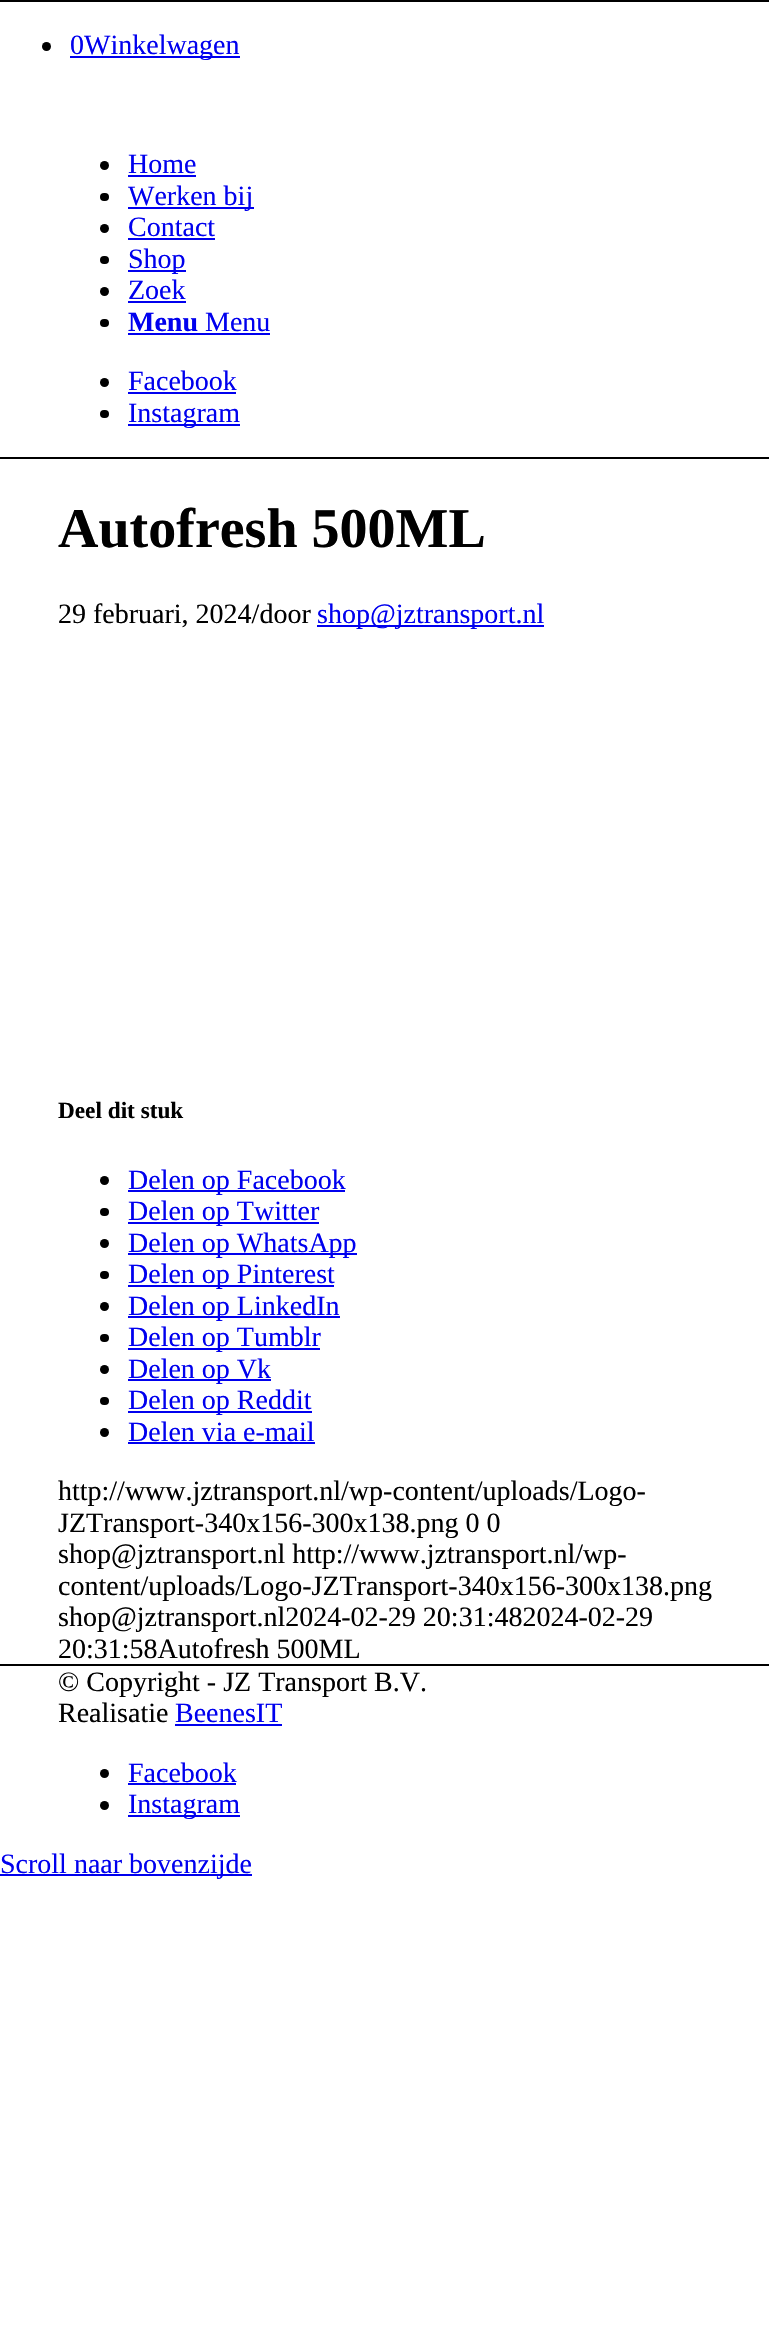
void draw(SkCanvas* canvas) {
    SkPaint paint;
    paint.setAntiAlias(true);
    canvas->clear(0xFFFFFFFF);
    paint.setColor(0xFF000000);
    canvas->drawRect(SkRect::MakeXYWH(0, 0, 769, 2), paint);
    canvas->drawCircle(46.5f, 46.5f, 4.5f, paint);
    paint.setColor(0xFF0000EE);
    canvas->drawRect(SkRect::MakeXYWH(70, 56, 170, 2), paint);
    SkFont font1(fontMgr->matchFamilyStyle("Liberation Serif", SkFontStyle::Normal()), 28);
    font1.setSubpixel(true);
    canvas->drawString("0Winkelwagen", 70, 54, font1, paint);
    paint.setColor(0xFF000000);
    canvas->drawCircle(104.5f, 165.5f, 4.5f, paint);
    paint.setColor(0xFF0000EE);
    canvas->drawString("Home", 128, 173, font1, paint);
    canvas->drawRect(SkRect::MakeXYWH(128, 175, 68, 2), paint);
    paint.setColor(0xFF000000);
    canvas->drawRoundRect(SkRect::MakeXYWH(100, 193, 9, 8), 4, 4, paint);
    paint.setColor(0xFF0000EE);
    canvas->drawRect(SkRect::MakeXYWH(128, 207, 126, 2), paint);
    canvas->drawString("Werken bij", 128, 205, font1, paint);
    paint.setColor(0xFF000000);
    canvas->drawCircle(104.5f, 228.5f, 4.5f, paint);
    paint.setColor(0xFF0000EE);
    canvas->drawString("Contact", 128, 236, font1, paint);
    canvas->drawRect(SkRect::MakeXYWH(128, 238, 87, 2), paint);
    paint.setColor(0xFF000000);
    canvas->drawRoundRect(SkRect::MakeXYWH(100, 256, 9, 8), 4, 4, paint);
    paint.setColor(0xFF0000EE);
    canvas->drawRect(SkRect::MakeXYWH(128, 270, 58, 2), paint);
    canvas->drawString("Shop", 128, 268, font1, paint);
    paint.setColor(0xFF000000);
    canvas->drawCircle(104.5f, 291.5f, 4.5f, paint);
    paint.setColor(0xFF0000EE);
    canvas->drawString("Zoek", 128, 299, font1, paint);
    canvas->drawRect(SkRect::MakeXYWH(128, 301, 58, 2), paint);
    paint.setColor(0xFF000000);
    canvas->drawRoundRect(SkRect::MakeXYWH(100, 319, 9, 8), 4, 4, paint);
    SkFont font2(fontMgr->matchFamilyStyle("Liberation Serif", SkFontStyle::Bold()), 28);
    font2.setSubpixel(true);
    paint.setColor(0xFF0000EE);
    canvas->drawString("Menu", 128, 331, font2, paint);
    canvas->drawRect(SkRect::MakeXYWH(128, 333, 142, 2), paint);
    canvas->drawString("Menu", 205, 331, font1, paint);
    paint.setColor(0xFF000000);
    canvas->drawCircle(104.5f, 382.5f, 4.5f, paint);
    paint.setColor(0xFF0000EE);
    canvas->drawString("Facebook", 128, 390, font1, paint);
    canvas->drawRect(SkRect::MakeXYWH(128, 392, 108, 2), paint);
    paint.setColor(0xFF000000);
    canvas->drawRoundRect(SkRect::MakeXYWH(100, 410, 9, 8), 4, 4, paint);
    paint.setColor(0xFF0000EE);
    canvas->drawRect(SkRect::MakeXYWH(128, 424, 112, 2), paint);
    canvas->drawString("Instagram", 128, 422, font1, paint);
    paint.setColor(0xFF000000);
    canvas->drawRect(SkRect::MakeXYWH(0, 457, 769, 2), paint);
    SkFont font3(fontMgr->matchFamilyStyle("Liberation Serif", SkFontStyle::Bold()), 56);
    font3.setSubpixel(true);
    canvas->drawString("Autofresh 500ML", 58, 547, font3, paint);
    canvas->drawString("29 februari, 2024/door", 58, 623, font1, paint);
    paint.setColor(0xFF0000EE);
    canvas->drawRect(SkRect::MakeXYWH(317, 625, 227, 2), paint);
    canvas->drawString("shop@jztransport.nl", 317, 623, font1, paint);
    SkFont font4(fontMgr->matchFamilyStyle("Liberation Serif", SkFontStyle::Bold()), 23.25f);
    font4.setSubpixel(true);
    paint.setColor(0xFF000000);
    canvas->drawString("Deel dit stuk", 58, 1118, font4, paint);
    canvas->drawCircle(104.5f, 1180.5f, 4.5f, paint);
    paint.setColor(0xFF0000EE);
    canvas->drawRect(SkRect::MakeXYWH(128, 1190, 217, 2), paint);
    canvas->drawString("Delen op Facebook", 128, 1189, font1, paint);
    paint.setColor(0xFF000000);
    canvas->drawRoundRect(SkRect::MakeXYWH(100, 1208, 9, 8), 4, 4, paint);
    paint.setColor(0xFF0000EE);
    canvas->drawRect(SkRect::MakeXYWH(128, 1222, 191, 2), paint);
    canvas->drawString("Delen op Twitter", 128, 1220, font1, paint);
    paint.setColor(0xFF000000);
    canvas->drawCircle(104.5f, 1243.5f, 4.5f, paint);
    paint.setColor(0xFF0000EE);
    canvas->drawRect(SkRect::MakeXYWH(128, 1253, 229, 2), paint);
    canvas->drawString("Delen op WhatsApp", 128, 1252, font1, paint);
    paint.setColor(0xFF000000);
    canvas->drawRoundRect(SkRect::MakeXYWH(100, 1271, 9, 8), 4, 4, paint);
    paint.setColor(0xFF0000EE);
    canvas->drawRect(SkRect::MakeXYWH(128, 1285, 206, 2), paint);
    canvas->drawString("Delen op Pinterest", 128, 1283, font1, paint);
    paint.setColor(0xFF000000);
    canvas->drawCircle(104.5f, 1306.5f, 4.5f, paint);
    paint.setColor(0xFF0000EE);
    canvas->drawRect(SkRect::MakeXYWH(128, 1316, 212, 2), paint);
    canvas->drawString("Delen op LinkedIn", 128, 1315, font1, paint);
    paint.setColor(0xFF000000);
    canvas->drawRoundRect(SkRect::MakeXYWH(100, 1334, 9, 8), 4, 4, paint);
    paint.setColor(0xFF0000EE);
    canvas->drawRect(SkRect::MakeXYWH(128, 1348, 192, 2), paint);
    canvas->drawString("Delen op Tumblr", 128, 1346, font1, paint);
    paint.setColor(0xFF000000);
    canvas->drawCircle(104.5f, 1369.5f, 4.5f, paint);
    paint.setColor(0xFF0000EE);
    canvas->drawRect(SkRect::MakeXYWH(128, 1379, 143, 2), paint);
    canvas->drawString("Delen op Vk", 128, 1378, font1, paint);
    paint.setColor(0xFF000000);
    canvas->drawRoundRect(SkRect::MakeXYWH(100, 1397, 9, 8), 4, 4, paint);
    paint.setColor(0xFF0000EE);
    canvas->drawRect(SkRect::MakeXYWH(128, 1411, 184, 2), paint);
    canvas->drawString("Delen op Reddit", 128, 1409, font1, paint);
    paint.setColor(0xFF000000);
    canvas->drawCircle(104.5f, 1432.5f, 4.5f, paint);
    paint.setColor(0xFF0000EE);
    canvas->drawString("Delen via e-mail", 128, 1441, font1, paint);
    canvas->drawRect(SkRect::MakeXYWH(128, 1442, 187, 2), paint);
    paint.setColor(0xFF000000);
    canvas->drawString("http://www.jztransport.nl/wp-content/uploads/Logo-", 58, 1500, font1, paint);
    canvas->drawString("JZTransport-340x156-300x138.png 0 0", 58, 1532, font1, paint);
    canvas->drawString("shop@jztransport.nl http://www.jztransport.nl/wp-", 58, 1563, font1, paint);
    canvas->drawString("content/uploads/Logo-JZTransport-340x156-300x138.png", 58, 1595, font1, paint);
    canvas->drawString("shop@jztransport.nl2024-02-29 20:31:482024-02-29", 58, 1626, font1, paint);
    canvas->drawString("20:31:58Autofresh 500ML", 58, 1658, font1, paint);
    canvas->drawRect(SkRect::MakeXYWH(0, 1664, 769, 2), paint);
    canvas->drawString("© Copyright - JZ Transport B.V.", 58, 1691, font1, paint);
    canvas->drawString("Realisatie", 58, 1722, font1, paint);
    paint.setColor(0xFF0000EE);
    canvas->drawString("BeenesIT", 175, 1722, font1, paint);
    canvas->drawRect(SkRect::MakeXYWH(175, 1724, 107, 2), paint);
    paint.setColor(0xFF000000);
    canvas->drawCircle(104.5f, 1773.5f, 4.5f, paint);
    paint.setColor(0xFF0000EE);
    canvas->drawString("Facebook", 128, 1782, font1, paint);
    canvas->drawRect(SkRect::MakeXYWH(128, 1783, 108, 2), paint);
    paint.setColor(0xFF000000);
    canvas->drawCircle(104.5f, 1805.5f, 4.5f, paint);
    paint.setColor(0xFF0000EE);
    canvas->drawRect(SkRect::MakeXYWH(128, 1815, 112, 2), paint);
    canvas->drawString("Instagram", 128, 1813, font1, paint);
    canvas->drawRect(SkRect::MakeXYWH(0, 1874, 252, 2), paint);
    canvas->drawString("Scroll naar bovenzijde", 0, 1873, font1, paint);
}
